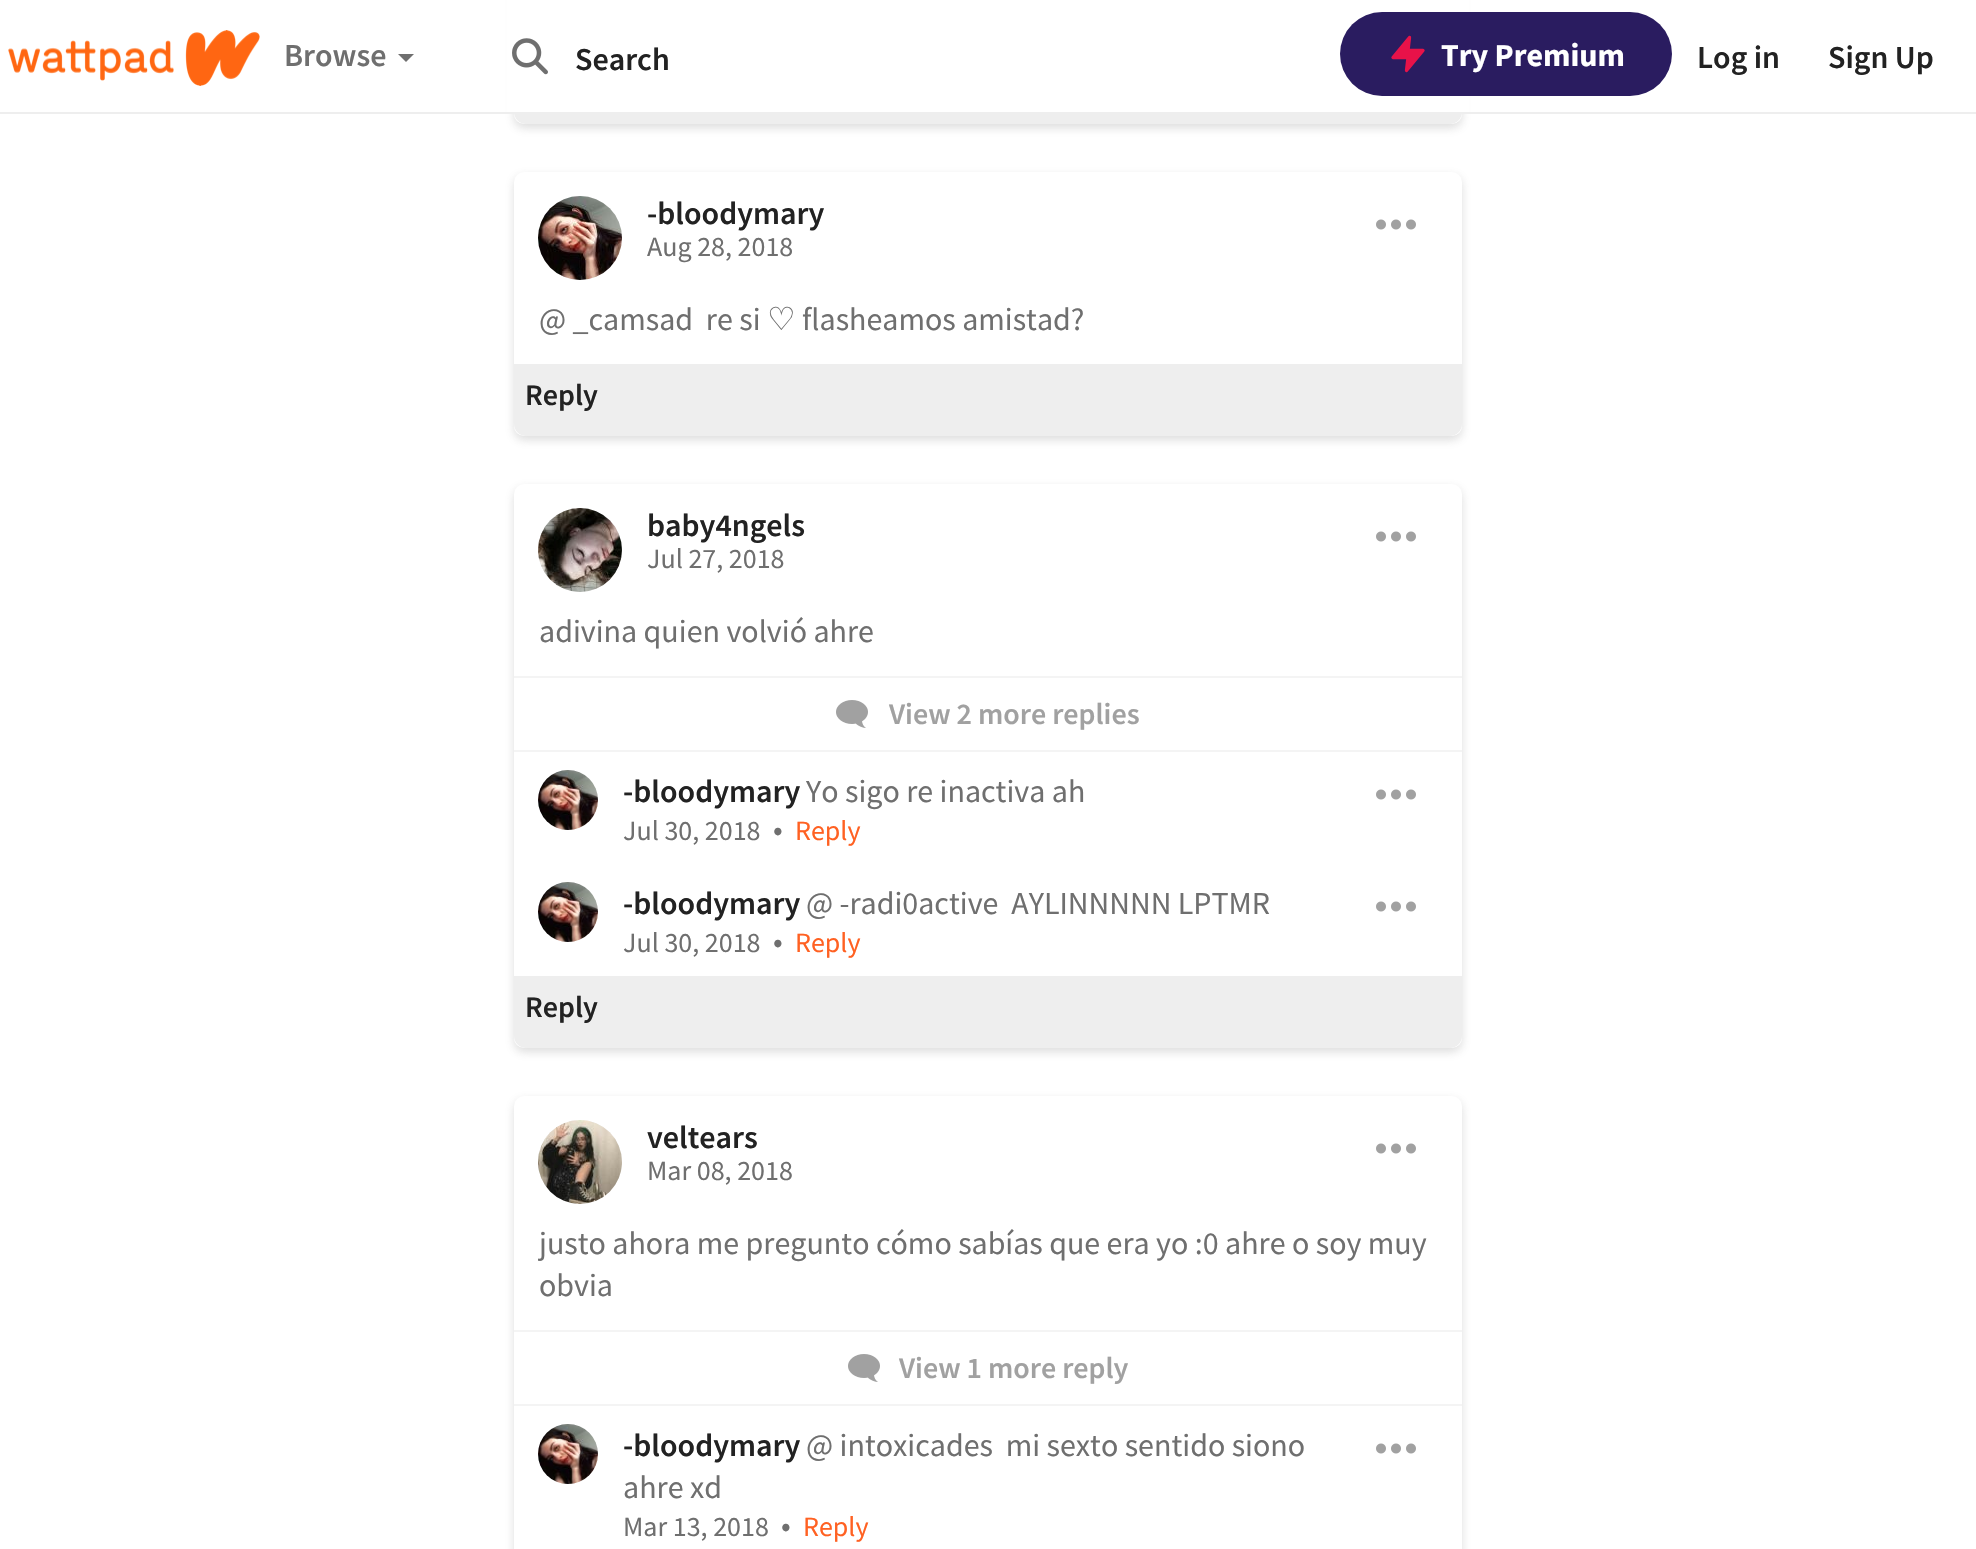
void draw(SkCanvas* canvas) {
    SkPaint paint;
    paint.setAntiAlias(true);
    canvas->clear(0xFFFFFFFF);
    paint.setColor(0x40787878);
    paint.setMaskFilter(SkMaskFilter::MakeBlur(kNormal_SkBlurStyle, 5));
    canvas->drawRoundRect(SkRect::MakeXYWH(514, -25, 948, 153), 10, 10, paint);
    paint.setMaskFilter(nullptr);
    paint.setColor(0xFFFFFFFF);
    canvas->drawRoundRect(SkRect::MakeXYWH(514, -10, 948, 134), 10, 10, paint);
    paint.setColor(0xFFEEEEEE);
    canvas->drawPath(SkPathBuilder().moveTo(514, 52).lineTo(1462, 52).lineTo(1462, 112).cubicTo(1462, 118.5f, 1456.5f, 124, 1450, 124).lineTo(526, 124).cubicTo(519.5f, 124, 514, 118.5f, 514, 112).close().detach(), paint);
    paint.setColor(0xFFFFFFFF);
    canvas->drawRect(SkRect::MakeXYWH(507, 0, 962, 112), paint);
    paint.setColor(0xFFEEEEEE);
    canvas->drawRect(SkRect::MakeXYWH(0, 112, 1976, 2), paint);
    canvas->drawImageRect(SkImages::DeferredFromEncodedData(SkData::MakeFromFileName("img1.png")), SkRect::MakeXYWH(8, 30, 252, 56), SkSamplingOptions());
    SkFont font1(fontMgr->matchFamilyStyle("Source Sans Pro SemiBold", SkFontStyle(600, SkFontStyle::kNormal_Width, SkFontStyle::kUpright_Slant)), 32);
    font1.setSubpixel(true);
    paint.setColor(0xFF6F6F6F);
    canvas->drawString("Browse", 284, 66, font1, paint);
    canvas->drawPath(SkPathBuilder().moveTo(398, 54).lineTo(414, 54).lineTo(406, 62).close().detach(), paint);
    canvas->drawImageRect(SkImages::DeferredFromEncodedData(SkData::MakeFromFileName("img2.png")), SkRect::MakeXYWH(512, 38, 36, 37), SkSamplingOptions());
    paint.setColor(0xFF222222);
    canvas->drawString("Search", 575, 70, font1, paint);
    paint.setColor(0xFF2A1C60);
    canvas->drawRoundRect(SkRect::MakeXYWH(1340, 12, 332, 84), 42, 42, paint);
    paint.setColor(0xFFE81249);
    canvas->drawPath(SkPathBuilder().moveTo(1409.5f, 37.5f).lineTo(1393, 57.5f).lineTo(1408, 57.5f).lineTo(1406.5f, 70.5f).lineTo(1423, 50.5f).lineTo(1408, 50.5f).close().detach(), paint);
    paint.setStyle(SkPaint::kStroke_Style);
    paint.setStrokeWidth(3.3f);
    paint.setStrokeCap(SkPaint::kRound_Cap);
    paint.setStrokeJoin(SkPaint::kRound_Join);
    canvas->drawPath(SkPathBuilder().moveTo(1409.5f, 37.5f).lineTo(1393, 57.5f).lineTo(1408, 57.5f).lineTo(1406.5f, 70.5f).lineTo(1423, 50.5f).lineTo(1408, 50.5f).close().detach(), paint);
    SkFont font2(fontMgr->matchFamilyStyle("Source Sans Pro", SkFontStyle::Bold()), 32);
    font2.setSubpixel(true);
    paint.setStyle(SkPaint::kFill_Style);
    paint.setColor(0xFFFFFFFF);
    canvas->drawString("Try Premium", 1441, 66, font2, paint);
    paint.setColor(0xFF222222);
    canvas->drawString("Log in", 1697, 68, font1, paint);
    canvas->drawString("Sign Up", 1828, 68, font1, paint);
    paint.setColor(0x40787878);
    paint.setMaskFilter(SkMaskFilter::MakeBlur(kNormal_SkBlurStyle, 5));
    canvas->drawRoundRect(SkRect::MakeXYWH(514, 176, 948, 264), 10, 10, paint);
    paint.setMaskFilter(nullptr);
    paint.setColor(0xFFFFFFFF);
    canvas->drawRoundRect(SkRect::MakeXYWH(514, 172, 948, 264), 10, 10, paint);
    paint.setColor(0xFFEEEEEE);
    canvas->drawCircle(580, 238, 42, paint);
    canvas->drawImageRect(SkImages::DeferredFromEncodedData(SkData::MakeFromFileName("img3.png")), SkRect::MakeXYWH(538, 196, 84, 84), SkSamplingOptions());
    paint.setColor(0xFF222222);
    canvas->drawString("-bloodymary", 647, 224, font1, paint);
    canvas->drawImageRect(SkImages::DeferredFromEncodedData(SkData::MakeFromFileName("img4.png")), SkRect::MakeXYWH(1376, 219, 40, 11), SkSamplingOptions());
    SkFont font3(fontMgr->matchFamilyStyle("Source Sans Pro", SkFontStyle::Normal()), 28);
    font3.setSubpixel(true);
    paint.setColor(0xFF6F6F6F);
    canvas->drawString("Aug 28, 2018", 647, 256, font3, paint);
    SkFont font4(fontMgr->matchFamilyStyle("Source Sans Pro", SkFontStyle::Normal()), 32);
    font4.setSubpixel(true);
    canvas->drawString("@ _camsad  re si", 539, 330, font4, paint);
    SkFont font5(fontMgr->matchFamilyStyle("DejaVu Sans", SkFontStyle::Normal()), 32);
    font5.setSubpixel(true);
    canvas->drawString("♡", 767, 330, font5, paint);
    canvas->drawString("flasheamos amistad?", 802, 330, font4, paint);
    paint.setColor(0xFFEEEEEE);
    canvas->drawPath(SkPathBuilder().moveTo(514, 364).lineTo(1462, 364).lineTo(1462, 424).cubicTo(1462, 430.5f, 1456.5f, 436, 1450, 436).lineTo(526, 436).cubicTo(519.5f, 436, 514, 430.5f, 514, 424).close().detach(), paint);
    SkFont font6(fontMgr->matchFamilyStyle("Source Sans Pro SemiBold", SkFontStyle(600, SkFontStyle::kNormal_Width, SkFontStyle::kUpright_Slant)), 30);
    font6.setSubpixel(true);
    paint.setColor(0xFF222222);
    canvas->drawString("Reply", 525, 405, font6, paint);
    paint.setColor(0x40787878);
    paint.setMaskFilter(SkMaskFilter::MakeBlur(kNormal_SkBlurStyle, 5));
    canvas->drawRoundRect(SkRect::MakeXYWH(514, 488, 948, 564), 10, 10, paint);
    paint.setMaskFilter(nullptr);
    paint.setColor(0xFFFFFFFF);
    canvas->drawRoundRect(SkRect::MakeXYWH(514, 484, 948, 564), 10, 10, paint);
    paint.setColor(0xFFEEEEEE);
    canvas->drawCircle(580, 550, 42, paint);
    canvas->drawImageRect(SkImages::DeferredFromEncodedData(SkData::MakeFromFileName("img5.png")), SkRect::MakeXYWH(538, 508, 84, 84), SkSamplingOptions());
    paint.setColor(0xFF222222);
    canvas->drawString("baby4ngels", 647, 536, font1, paint);
    canvas->drawImageRect(SkImages::DeferredFromEncodedData(SkData::MakeFromFileName("img4.png")), SkRect::MakeXYWH(1376, 531, 40, 11), SkSamplingOptions());
    paint.setColor(0xFF6F6F6F);
    canvas->drawString("Jul 27, 2018", 647, 568, font3, paint);
    canvas->drawString("adivina quien volvió ahre", 539, 642, font4, paint);
    paint.setColor(0xFFF4F4F4);
    canvas->drawRect(SkRect::MakeXYWH(514, 676, 948, 2), paint);
    canvas->drawRect(SkRect::MakeXYWH(514, 750, 948, 2), paint);
    canvas->drawImageRect(SkImages::DeferredFromEncodedData(SkData::MakeFromFileName("img6.png")), SkRect::MakeXYWH(836, 700, 32, 28), SkSamplingOptions());
    paint.setColor(0xFFA1A1A1);
    canvas->drawString("View 2 more replies", 889, 724, font6, paint);
    canvas->drawImageRect(SkImages::DeferredFromEncodedData(SkData::MakeFromFileName("img7.png")), SkRect::MakeXYWH(538, 770, 60, 60), SkSamplingOptions());
    paint.setColor(0xFF222222);
    canvas->drawString("-bloodymary", 623, 802, font1, paint);
    paint.setColor(0xFF6F6F6F);
    canvas->drawString("Yo sigo re inactiva ah", 806, 802, font4, paint);
    canvas->drawString("Jul 30, 2018", 623, 840, font3, paint);
    canvas->drawString("•", 773, 840, font4, paint);
    paint.setColor(0xFFFF6122);
    canvas->drawString("Reply", 795, 840, font3, paint);
    canvas->drawImageRect(SkImages::DeferredFromEncodedData(SkData::MakeFromFileName("img4.png")), SkRect::MakeXYWH(1376, 789, 40, 11), SkSamplingOptions());
    canvas->drawImageRect(SkImages::DeferredFromEncodedData(SkData::MakeFromFileName("img8.png")), SkRect::MakeXYWH(538, 882, 60, 60), SkSamplingOptions());
    paint.setColor(0xFF222222);
    canvas->drawString("-bloodymary", 623, 914, font1, paint);
    paint.setColor(0xFF6F6F6F);
    canvas->drawString("@ -radi0active  AYLINNNNN LPTMR", 806, 914, font4, paint);
    canvas->drawString("Jul 30, 2018", 623, 952, font3, paint);
    canvas->drawString("•", 773, 952, font4, paint);
    paint.setColor(0xFFFF6122);
    canvas->drawString("Reply", 795, 952, font3, paint);
    canvas->drawImageRect(SkImages::DeferredFromEncodedData(SkData::MakeFromFileName("img4.png")), SkRect::MakeXYWH(1376, 901, 40, 11), SkSamplingOptions());
    paint.setColor(0xFFEEEEEE);
    canvas->drawPath(SkPathBuilder().moveTo(514, 976).lineTo(1462, 976).lineTo(1462, 1036).cubicTo(1462, 1042.5f, 1456.5f, 1048, 1450, 1048).lineTo(526, 1048).cubicTo(519.5f, 1048, 514, 1042.5f, 514, 1036).close().detach(), paint);
    paint.setColor(0xFF222222);
    canvas->drawString("Reply", 525, 1017, font6, paint);
    paint.setColor(0x40787878);
    paint.setMaskFilter(SkMaskFilter::MakeBlur(kNormal_SkBlurStyle, 5));
    canvas->drawRoundRect(SkRect::MakeXYWH(514, 1100, 948, 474), 10, 10, paint);
    paint.setMaskFilter(nullptr);
    paint.setColor(0xFFFFFFFF);
    canvas->drawRoundRect(SkRect::MakeXYWH(514, 1096, 948, 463), 10, 10, paint);
    paint.setColor(0xFFEEEEEE);
    canvas->drawCircle(580, 1162, 42, paint);
    canvas->drawImageRect(SkImages::DeferredFromEncodedData(SkData::MakeFromFileName("img9.png")), SkRect::MakeXYWH(538, 1120, 84, 84), SkSamplingOptions());
    paint.setColor(0xFF222222);
    canvas->drawString("veltears", 647, 1148, font1, paint);
    canvas->drawImageRect(SkImages::DeferredFromEncodedData(SkData::MakeFromFileName("img4.png")), SkRect::MakeXYWH(1376, 1143, 40, 11), SkSamplingOptions());
    paint.setColor(0xFF6F6F6F);
    canvas->drawString("Mar 08, 2018", 647, 1180, font3, paint);
    canvas->save();
    canvas->clipRect(SkRect::MakeXYWH(538, 1222, 900, 84));
    canvas->drawString("justo ahora me pregunto cómo sabías que era yo :0 ahre o soy muy", 539, 1254, font4, paint);
    canvas->restore();
    canvas->drawString("obvia", 539, 1296, font4, paint);
    paint.setColor(0xFFF4F4F4);
    canvas->drawRect(SkRect::MakeXYWH(514, 1330, 948, 2), paint);
    canvas->drawRect(SkRect::MakeXYWH(514, 1404, 948, 2), paint);
    canvas->drawImageRect(SkImages::DeferredFromEncodedData(SkData::MakeFromFileName("img6.png")), SkRect::MakeXYWH(848, 1354, 32, 28), SkSamplingOptions());
    paint.setColor(0xFFA1A1A1);
    canvas->drawString("View 1 more reply", 899, 1378, font6, paint);
    canvas->drawImageRect(SkImages::DeferredFromEncodedData(SkData::MakeFromFileName("img7.png")), SkRect::MakeXYWH(538, 1424, 60, 60), SkSamplingOptions());
    paint.setColor(0xFF222222);
    canvas->drawString("-bloodymary", 623, 1456, font1, paint);
    paint.setColor(0xFF6F6F6F);
    canvas->drawString("@ intoxicades  mi sexto sentido siono", 806, 1456, font4, paint);
    canvas->drawString("ahre xd", 623, 1498, font4, paint);
    canvas->drawString("Mar 13, 2018", 623, 1536, font3, paint);
    canvas->drawString("•", 781, 1536, font4, paint);
    paint.setColor(0xFFFF6122);
    canvas->drawString("Reply", 803, 1536, font3, paint);
    canvas->drawImageRect(SkImages::DeferredFromEncodedData(SkData::MakeFromFileName("img4.png")), SkRect::MakeXYWH(1376, 1443, 40, 11), SkSamplingOptions());
}
